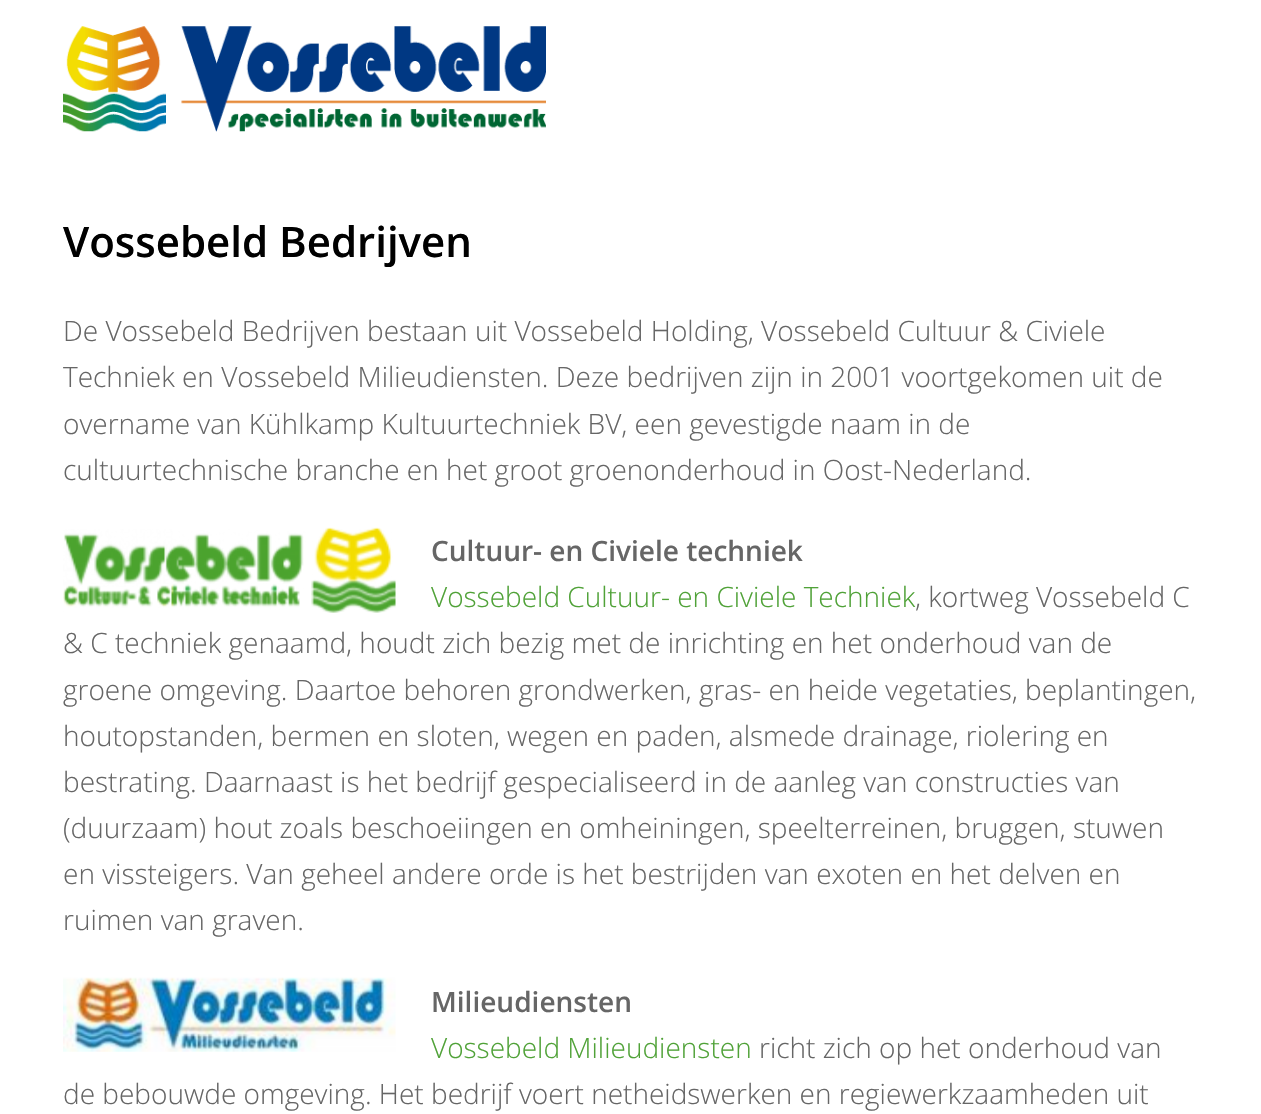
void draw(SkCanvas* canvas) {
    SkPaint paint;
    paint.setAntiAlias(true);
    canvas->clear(0xFFFFFFFF);
    canvas->drawImageRect(SkImages::DeferredFromEncodedData(SkData::MakeFromFileName("img1.png")), SkRect::MakeXYWH(63, 26, 483, 106), SkSamplingOptions());
    SkFont font1(fontMgr->matchFamilyStyle("Open Sans", SkFontStyle(600, SkFontStyle::kNormal_Width, SkFontStyle::kUpright_Slant)), 42);
    font1.setSubpixel(true);
    paint.setColor(0xFF000000);
    canvas->drawString("Vossebeld Bedrijven", 63, 257, font1, paint);
    SkFont font2(fontMgr->matchFamilyStyle("Open Sans", SkFontStyle(300, SkFontStyle::kNormal_Width, SkFontStyle::kUpright_Slant)), 28);
    font2.setSubpixel(true);
    paint.setColor(0xFF666666);
    canvas->drawString("De Vossebeld Bedrijven bestaan uit Vossebeld Holding, Vossebeld Cultuur & Civiele", 63, 341, font2, paint);
    canvas->drawString("Techniek en Vossebeld Milieudiensten. Deze bedrijven zijn in 2001 voortgekomen uit de", 63, 387, font2, paint);
    canvas->drawString("overname van Kühlkamp Kultuurtechniek BV, een gevestigde naam in de", 63, 434, font2, paint);
    canvas->drawString("cultuurtechnische branche en het groot groenonderhoud in Oost-Nederland.", 63, 480, font2, paint);
    canvas->drawImageRect(SkImages::DeferredFromEncodedData(SkData::MakeFromFileName("img2.png")), SkRect::MakeXYWH(63, 527, 333, 86), SkSamplingOptions());
    SkFont font3(fontMgr->matchFamilyStyle("Open Sans", SkFontStyle(600, SkFontStyle::kNormal_Width, SkFontStyle::kUpright_Slant)), 28);
    font3.setSubpixel(true);
    canvas->drawString("Cultuur- en Civiele techniek", 431, 561, font3, paint);
    paint.setColor(0xFF50A238);
    canvas->drawString("Vossebeld Cultuur- en Civiele Techniek", 431, 607, font2, paint);
    paint.setColor(0xFF666666);
    canvas->drawString(", kortweg Vossebeld C", 915, 607, font2, paint);
    canvas->drawString("& C techniek genaamd, houdt zich bezig met de inrichting en het onderhoud van de", 63, 653, font2, paint);
    canvas->drawString("groene omgeving. Daartoe behoren grondwerken, gras- en heide vegetaties, beplantingen,", 63, 700, font2, paint);
    canvas->drawString("houtopstanden, bermen en sloten, wegen en paden, alsmede drainage, riolering en", 63, 746, font2, paint);
    canvas->drawString("bestrating. Daarnaast is het bedrijf gespecialiseerd in de aanleg van constructies van", 63, 792, font2, paint);
    canvas->drawString("(duurzaam) hout zoals beschoeiingen en omheiningen, speelterreinen, bruggen, stuwen", 63, 838, font2, paint);
    canvas->drawString("en vissteigers. Van geheel andere orde is het bestrijden van exoten en het delven en", 63, 884, font2, paint);
    canvas->drawString("ruimen van graven.", 63, 930, font2, paint);
    canvas->drawImageRect(SkImages::DeferredFromEncodedData(SkData::MakeFromFileName("img3.png")), SkRect::MakeXYWH(63, 977, 333, 75), SkSamplingOptions());
    canvas->drawString("Milieudiensten", 431, 1012, font3, paint);
    paint.setColor(0xFF50A238);
    canvas->drawString("Vossebeld Milieudiensten", 431, 1058, font2, paint);
    paint.setColor(0xFF666666);
    canvas->drawString("richt zich op het onderhoud van", 759, 1058, font2, paint);
    canvas->drawString("de bebouwde omgeving. Het bedrijf voert netheidswerken en regiewerkzaamheden uit", 63, 1104, font2, paint);
}
